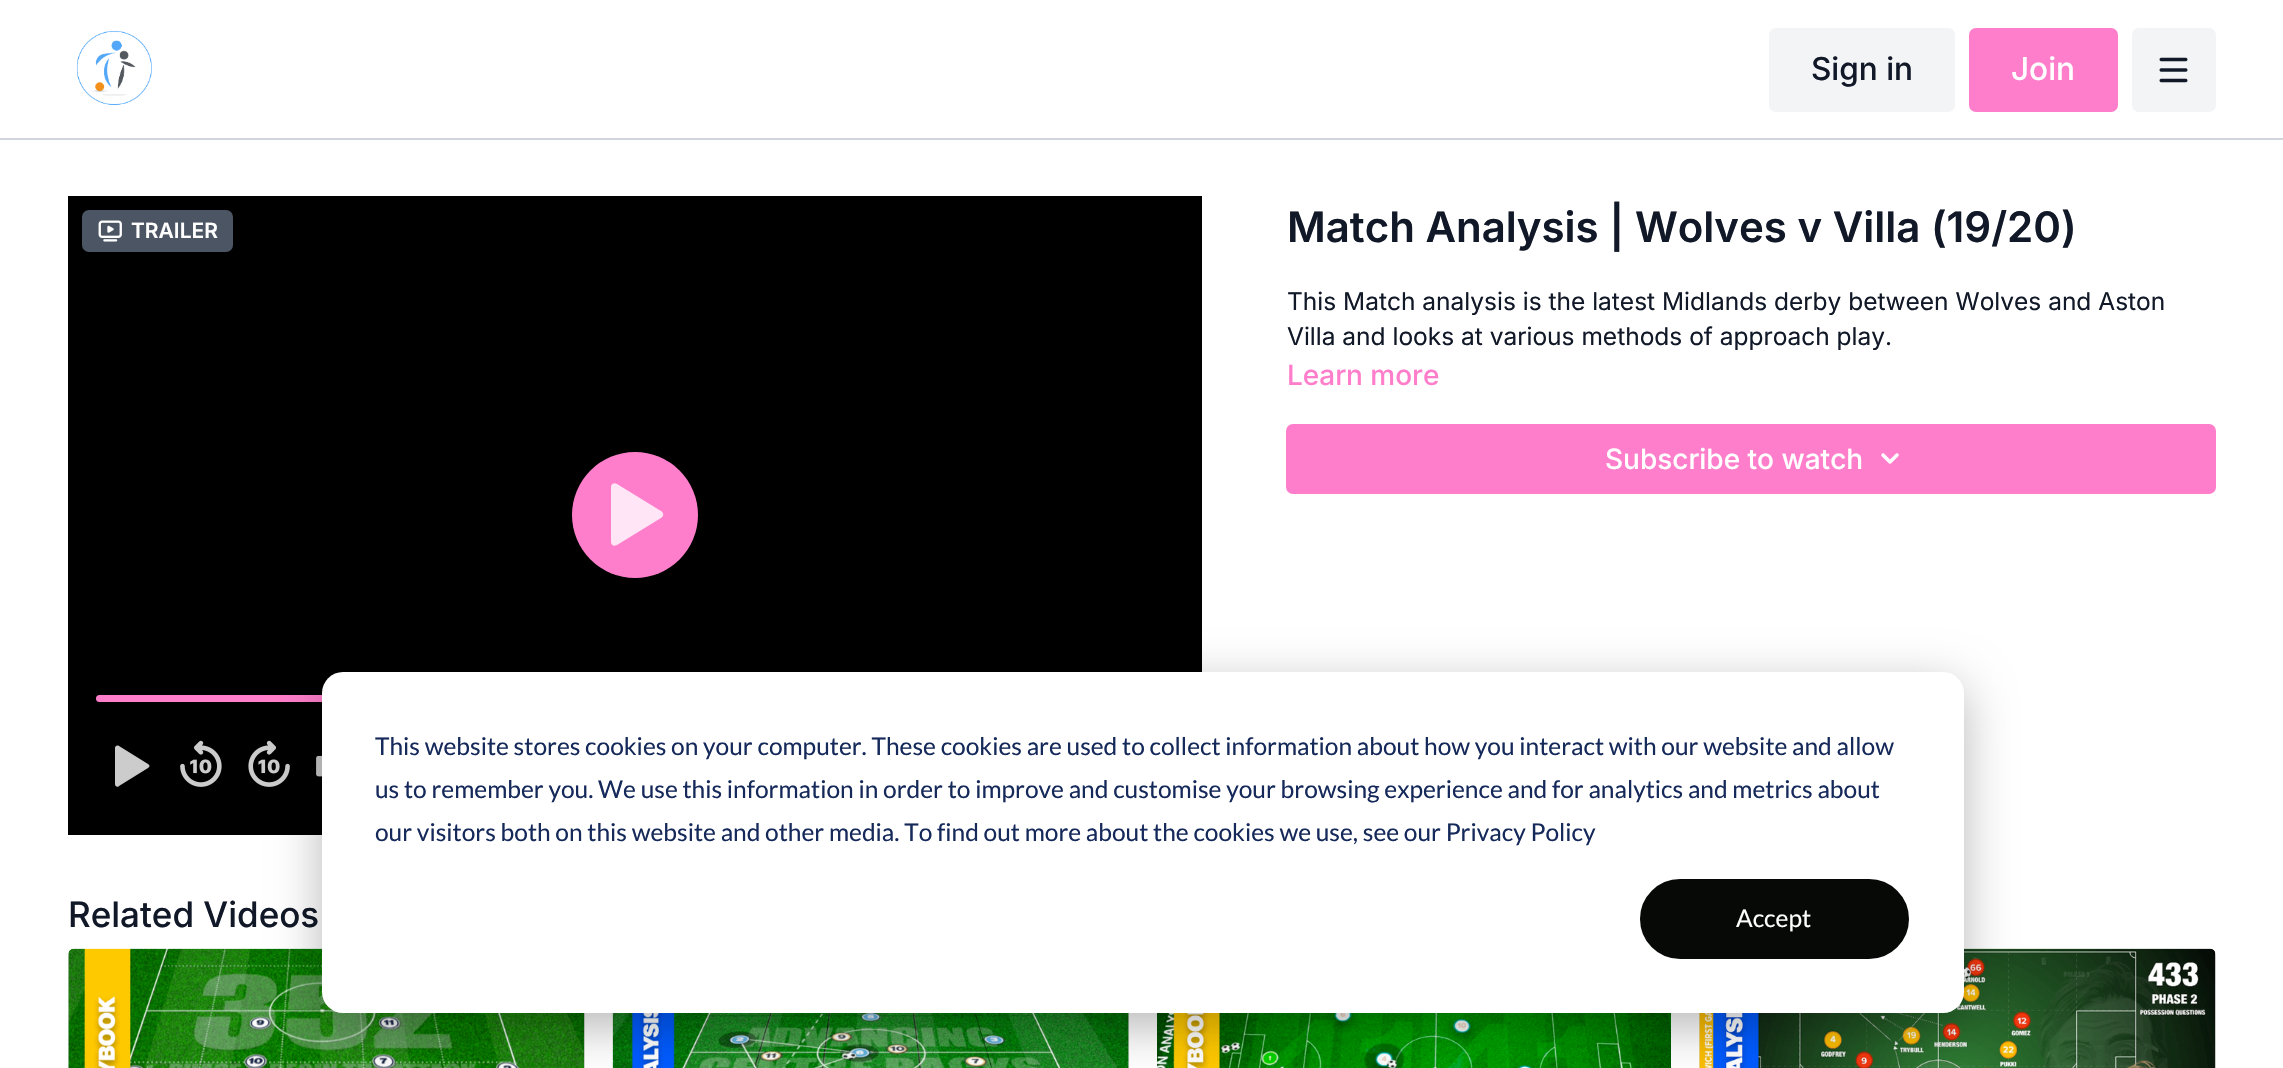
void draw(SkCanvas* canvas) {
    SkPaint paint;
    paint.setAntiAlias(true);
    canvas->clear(0xFFFFFFFF);
    paint.setColor(0xFFD1D5DB);
    canvas->drawRect(SkRect::MakeXYWH(0, 138, 2283, 2), paint);
    canvas->drawImageRect(SkImages::DeferredFromEncodedData(SkData::MakeFromFileName("img1.png")), SkRect::MakeXYWH(76, 31, 76, 74), SkSamplingOptions());
    paint.setColor(0xFFF3F4F6);
    canvas->drawRoundRect(SkRect::MakeXYWH(1769, 28, 186, 84), 7, 7, paint);
    SkFont font1(fontMgr->matchFamilyStyle("Inter", SkFontStyle(500, SkFontStyle::kNormal_Width, SkFontStyle::kUpright_Slant)), 31.5f);
    font1.setSubpixel(true);
    paint.setColor(0xFF111827);
    canvas->drawString("Sign in", 1811, 80, font1, paint);
    paint.setColor(0xFFFF7ECB);
    canvas->drawRoundRect(SkRect::MakeXYWH(1969, 28, 149, 84), 7, 7, paint);
    paint.setColor(0xFFFFFFFF);
    canvas->drawString("Join", 2011, 80, font1, paint);
    paint.setColor(0xFFF3F4F6);
    canvas->drawRoundRect(SkRect::MakeXYWH(2132, 28, 84, 84), 7, 7, paint);
    canvas->drawImageRect(SkImages::DeferredFromEncodedData(SkData::MakeFromFileName("img2.png")), SkRect::MakeXYWH(2159, 57, 29, 26), SkSamplingOptions());
    paint.setColor(0xFF000000);
    canvas->drawRect(SkRect::MakeXYWH(68, 196, 1134, 639), paint);
    paint.setColor(0xFFFF7ECB);
    canvas->drawCircle(635, 515, 63, paint);
    paint.setColor(0xFFFFE5F5);
    canvas->drawPath(SkPathBuilder().moveTo(617, 484).cubicTo(614, 482, 611, 484, 611, 487).lineTo(611, 542).cubicTo(611, 545, 614, 547, 617, 545).lineTo(661, 518).cubicTo(664, 516, 664, 513, 661, 511).close().detach(), paint);
    {
        const SkColor colors[] = {0xFFFF7ECB, 0xFF000000, 0xFF000000, 0xFFFF7ECB, 0xFFFF7ECB};
        const float stops[] = {0.35f, 0.37f, 0.4f, 0.46f, 1};
        const SkPoint ends[] = {{96, 702}, {2123, 702}};
        paint.setShader(SkGradientShader::MakeLinear(ends, colors, stops, 5, SkTileMode::kClamp));
        paint.setAlpha(255);
    }
    canvas->drawRoundRect(SkRect::MakeXYWH(96, 695, 1014, 7), 3.5f, 3.5f, paint);
    paint.setShader(nullptr);
    paint.setColor(0xFFCCCCCC);
    canvas->drawPath(SkPathBuilder().moveTo(119, 746).cubicTo(117, 745, 115, 746, 115, 748).lineTo(115, 784).cubicTo(115, 786, 117, 788, 119, 786).lineTo(148, 768).cubicTo(150, 767, 150, 765, 148, 764).close().detach(), paint);
    canvas->drawImageRect(SkImages::DeferredFromEncodedData(SkData::MakeFromFileName("img3.png")), SkRect::MakeXYWH(180, 740, 42, 47), SkSamplingOptions());
    canvas->drawImageRect(SkImages::DeferredFromEncodedData(SkData::MakeFromFileName("img4.png")), SkRect::MakeXYWH(248, 740, 42, 47), SkSamplingOptions());
    canvas->drawImageRect(SkImages::DeferredFromEncodedData(SkData::MakeFromFileName("img5.png")), SkRect::MakeXYWH(316, 755, 6, 22), SkSamplingOptions());
    paint.setColor(0xFF4B5563);
    canvas->drawRoundRect(SkRect::MakeXYWH(82, 210, 151, 42), 7, 7, paint);
    canvas->drawImageRect(SkImages::DeferredFromEncodedData(SkData::MakeFromFileName("img6.png")), SkRect::MakeXYWH(98, 220, 24, 22), SkSamplingOptions());
    SkFont font2(fontMgr->matchFamilyStyle("Inter", SkFontStyle(600, SkFontStyle::kNormal_Width, SkFontStyle::kUpright_Slant)), 21);
    font2.setSubpixel(true);
    paint.setColor(0xFFFFFFFF);
    canvas->drawString("TRAILER", 131, 238, font2, paint);
    SkFont font3(fontMgr->matchFamilyStyle("Inter", SkFontStyle(600, SkFontStyle::kNormal_Width, SkFontStyle::kUpright_Slant)), 42);
    font3.setSubpixel(true);
    paint.setColor(0xFF111827);
    canvas->drawString("Match Analysis | Wolves v Villa (19/20)", 1287, 242, font3, paint);
    SkFont font4(fontMgr->matchFamilyStyle("Inter", SkFontStyle::Normal()), 24.5f);
    font4.setSubpixel(true);
    canvas->drawString("This Match analysis is the latest Midlands derby between Wolves and Aston", 1287, 310, font4, paint);
    canvas->drawString("Villa and looks at various methods of approach play.", 1287, 345, font4, paint);
    SkFont font5(fontMgr->matchFamilyStyle("Inter", SkFontStyle(500, SkFontStyle::kNormal_Width, SkFontStyle::kUpright_Slant)), 28);
    font5.setSubpixel(true);
    paint.setColor(0xFFFF7ECB);
    canvas->drawString("Learn more", 1287, 385, font5, paint);
    canvas->drawRoundRect(SkRect::MakeXYWH(1286, 424, 930, 70), 7, 7, paint);
    paint.setColor(0xFFFFFFFF);
    canvas->drawString("Subscribe to watch", 1605, 469, font5, paint);
    canvas->drawImageRect(SkImages::DeferredFromEncodedData(SkData::MakeFromFileName("img7.png")), SkRect::MakeXYWH(1881, 453, 18, 11), SkSamplingOptions());
    SkFont font6(fontMgr->matchFamilyStyle("Inter", SkFontStyle(500, SkFontStyle::kNormal_Width, SkFontStyle::kUpright_Slant)), 35);
    font6.setSubpixel(true);
    paint.setColor(0xFF111827);
    canvas->drawString("Related Videos", 68, 927, font6, paint);
    {
        const SkColor colors[] = {0xFFDEDEDE, 0xFFE0E0E0, 0xFFE3E3E3};
        const float stops[] = {0.08f, 0.18f, 0.33f};
        const SkPoint ends[] = {{68, 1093}, {585, 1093}};
        paint.setShader(SkGradientShader::MakeLinear(ends, colors, stops, 3, SkTileMode::kClamp));
        paint.setAlpha(255);
    }
    canvas->drawRoundRect(SkRect::MakeXYWH(68, 949, 517, 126), 7, 7, paint);
    canvas->drawImageRect(SkImages::DeferredFromEncodedData(SkData::MakeFromFileName("img8.png")), SkRect::MakeXYWH(68, 948, 517, 120), SkSamplingOptions());
    {
        const SkColor colors[] = {0xFFDEDEDE, 0xFFE0E0E0, 0xFFE3E3E3};
        const float stops[] = {0.08f, 0.18f, 0.33f};
        const SkPoint ends[] = {{613, 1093}, {1129, 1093}};
        paint.setShader(SkGradientShader::MakeLinear(ends, colors, stops, 3, SkTileMode::kClamp));
        paint.setAlpha(255);
    }
    canvas->drawRect(SkRect::MakeXYWH(1128, 1013, 1, 55), paint);
    canvas->drawImageRect(SkImages::DeferredFromEncodedData(SkData::MakeFromFileName("img9.png")), SkRect::MakeXYWH(612, 1013, 517, 55), SkSamplingOptions());
    canvas->drawImageRect(SkImages::DeferredFromEncodedData(SkData::MakeFromFileName("img10.png")), SkRect::MakeXYWH(1157, 1013, 514, 55), SkSamplingOptions());
    {
        const SkColor colors[] = {0xFFDEDEDE, 0xFFE0E0E0, 0xFFE3E3E3};
        const float stops[] = {0.08f, 0.18f, 0.33f};
        const SkPoint ends[] = {{1699, 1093}, {2216, 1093}};
        paint.setShader(SkGradientShader::MakeLinear(ends, colors, stops, 3, SkTileMode::kClamp));
        paint.setAlpha(255);
    }
    canvas->drawRoundRect(SkRect::MakeXYWH(1699, 949, 517, 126), 7, 7, paint);
    canvas->drawImageRect(SkImages::DeferredFromEncodedData(SkData::MakeFromFileName("img11.png")), SkRect::MakeXYWH(1699, 948, 517, 120), SkSamplingOptions());
    paint.setShader(nullptr);
    paint.setColor(0x47000000);
    paint.setMaskFilter(SkMaskFilter::MakeBlur(kNormal_SkBlurStyle, 24.5f));
    canvas->drawRoundRect(SkRect::MakeXYWH(322, 686, 1642, 341), 21, 21, paint);
    paint.setMaskFilter(nullptr);
    paint.setColor(0xFFFFFFFF);
    canvas->drawRoundRect(SkRect::MakeXYWH(322, 672, 1642, 341), 21, 21, paint);
    SkFont font7(fontMgr->matchFamilyStyle("Lato", SkFontStyle::Normal()), 24.5f);
    font7.setSubpixel(true);
    paint.setColor(0xFF15295A);
    canvas->drawString("This website stores cookies on your computer. These cookies are used to collect information about how you interact with our website and allow", 375, 755, font7, paint);
    canvas->drawString("us to remember you. We use this information in order to improve and customise your browsing experience and for analytics and metrics about", 375, 798, font7, paint);
    canvas->drawString("our visitors both on this website and other media. To find out more about the cookies we use, see our Privacy Policy", 375, 841, font7, paint);
    paint.setColor(0xFF070907);
    canvas->drawRoundRect(SkRect::MakeXYWH(1641, 880, 267, 78), 39, 39, paint);
    paint.setStyle(SkPaint::kStroke_Style);
    paint.setStrokeWidth(2);
    canvas->drawRoundRect(SkRect::MakeXYWH(1641, 880, 267, 78), 39, 39, paint);
    paint.setStyle(SkPaint::kFill_Style);
    paint.setColor(0xFFFFFFFF);
    canvas->drawString("Accept", 1736, 927, font7, paint);
}
